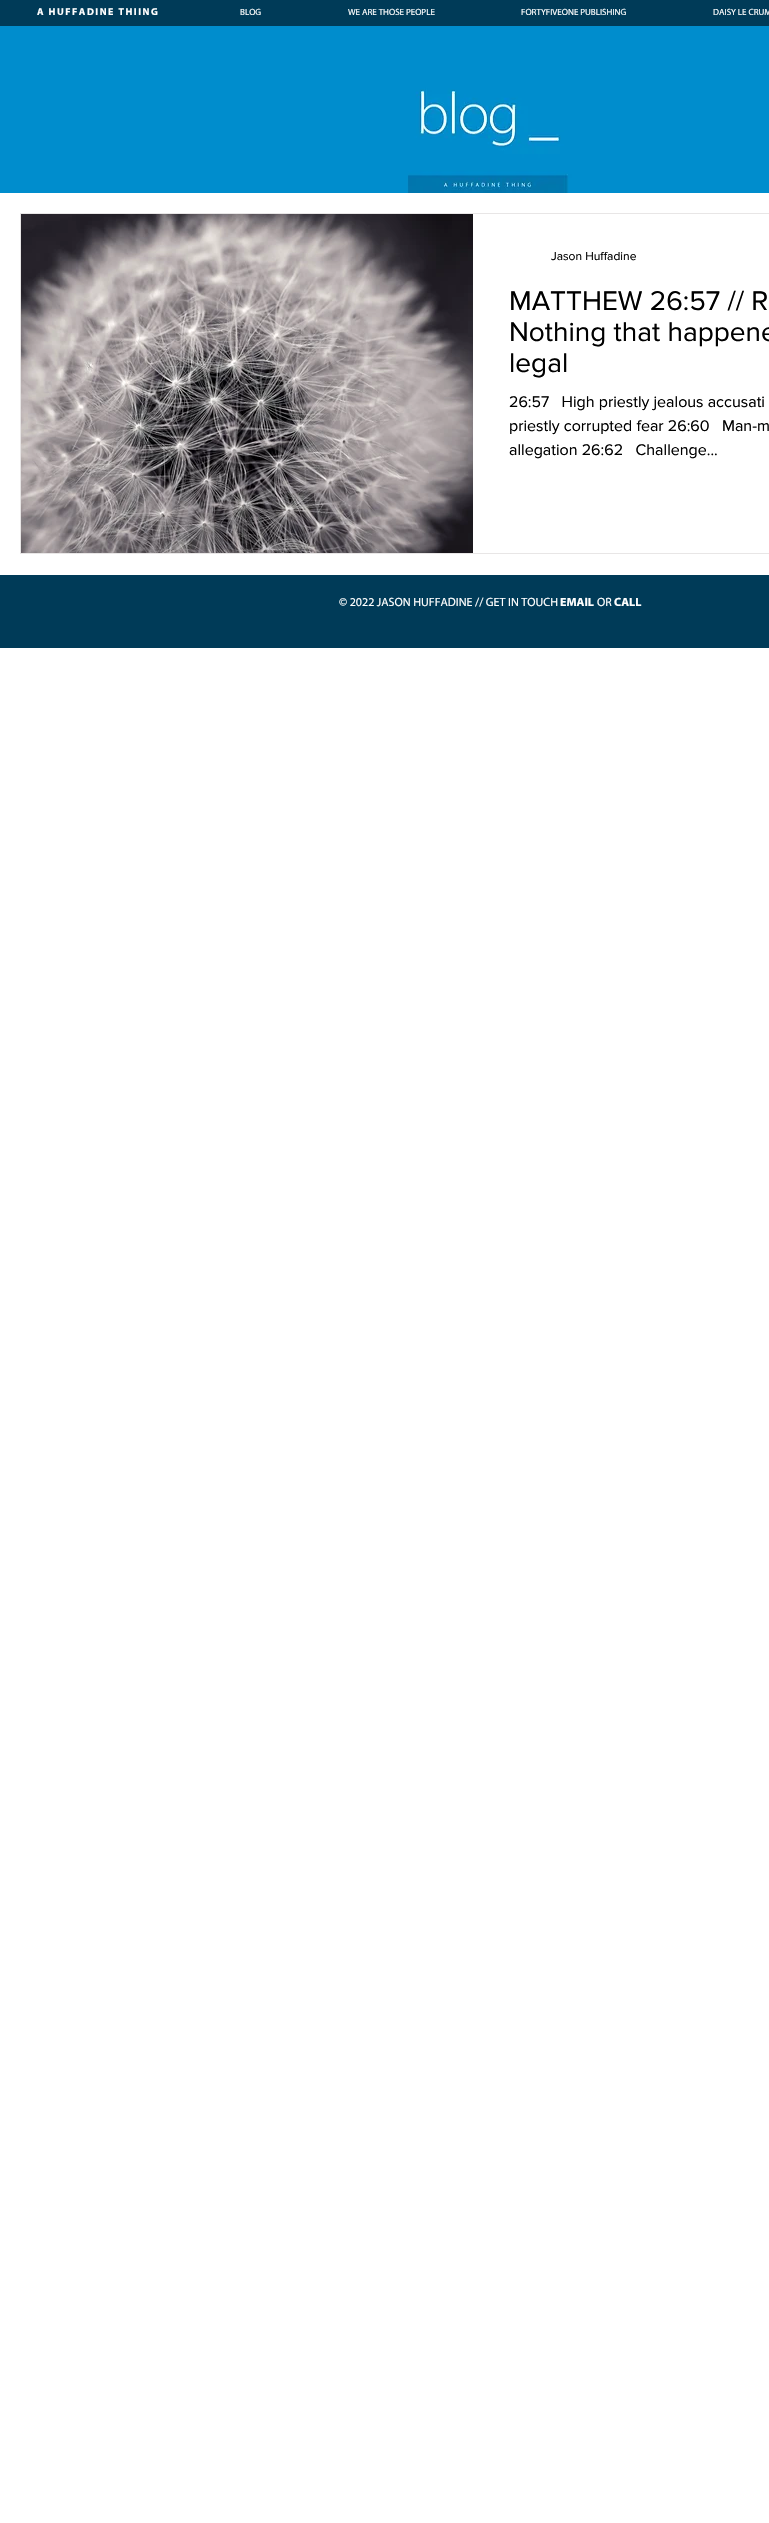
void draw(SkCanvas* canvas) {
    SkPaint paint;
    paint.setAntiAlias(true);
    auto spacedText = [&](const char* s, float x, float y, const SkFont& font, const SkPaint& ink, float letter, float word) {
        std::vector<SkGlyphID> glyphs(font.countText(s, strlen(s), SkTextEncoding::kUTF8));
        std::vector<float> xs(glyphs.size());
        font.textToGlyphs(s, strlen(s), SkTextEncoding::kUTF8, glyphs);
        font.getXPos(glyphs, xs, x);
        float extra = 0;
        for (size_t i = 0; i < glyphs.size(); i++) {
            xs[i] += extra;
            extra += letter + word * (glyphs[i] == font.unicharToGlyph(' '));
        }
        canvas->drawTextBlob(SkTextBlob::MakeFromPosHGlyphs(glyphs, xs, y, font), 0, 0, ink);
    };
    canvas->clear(0xFFFFFFFF);
    paint.setColor(0xFF003B58);
    canvas->drawRect(SkRect::MakeXYWH(0, 0, 769, 26), paint);
    SkFont font1(fontMgr->matchFamilyStyle("Myriad", SkFontStyle::Bold()), 10);
    font1.setSubpixel(true);
    paint.setColor(0xFFFFFFFF);
    spacedText("A HUFFADINE THIING", 37, 15, font1, paint, 1.5f, 0);
    SkFont font2(fontMgr->matchFamilyStyle("Myriad", SkFontStyle::Normal()), 9);
    font2.setSubpixel(true);
    canvas->drawString("BLOG", 240, 15, font2, paint);
    canvas->drawString("WE ARE THOSE PEOPLE", 348, 15, font2, paint);
    canvas->drawString("FORTYFIVEONE PUBLISHING", 521, 15, font2, paint);
    canvas->drawString("DAISY LE CRUM", 713, 15, font2, paint);
    canvas->drawImageRect(SkImages::DeferredFromEncodedData(SkData::MakeFromFileName("img1.png")), SkRect::MakeXYWH(0, 26, 769, 167), SkSamplingOptions());
    paint.setStyle(SkPaint::kStroke_Style);
    paint.setStrokeWidth(1);
    paint.setColor(0xFFE8E6E6);
    canvas->drawRect(SkRect::MakeXYWH(20.5f, 213.5f, 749, 340), paint);
    canvas->drawImageRect(SkImages::DeferredFromEncodedData(SkData::MakeFromFileName("img2.png")), SkRect::MakeXYWH(21, 214, 452, 339), SkSamplingOptions());
    SkFont font3(fontMgr->matchFamilyStyle("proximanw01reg", SkFontStyle::Normal()), 12);
    font3.setSubpixel(true);
    paint.setStyle(SkPaint::kFill_Style);
    paint.setColor(0xFF000000);
    canvas->drawString("Jason Huffadine", 551, 260, font3, paint);
    SkFont font4(fontMgr->matchFamilyStyle("proximanw01reg", SkFontStyle::Normal()), 28);
    font4.setSubpixel(true);
    canvas->drawString("MATTHEW 26:57 // R", 509, 310, font4, paint);
    canvas->drawString("Nothing that happene", 509, 341, font4, paint);
    canvas->drawString("legal", 509, 372, font4, paint);
    SkFont font5(fontMgr->matchFamilyStyle("proximanw01reg", SkFontStyle::Normal()), 16);
    font5.setSubpixel(true);
    canvas->drawString("26:57   High priestly jealous accusati", 509, 407, font5, paint);
    canvas->drawString("priestly corrupted fear 26:60   Man-m", 509, 431, font5, paint);
    canvas->drawString("allegation 26:62   Challenge...", 509, 455, font5, paint);
    paint.setColor(0xFF003B58);
    canvas->drawRect(SkRect::MakeXYWH(0, 575, 769, 73), paint);
    SkFont font6(fontMgr->matchFamilyStyle("Myriad", SkFontStyle::Normal()), 12);
    font6.setSubpixel(true);
    paint.setColor(0xFFFFFFFF);
    canvas->drawString("© 2022 JASON HUFFADINE // GET IN TOUCH", 339, 606, font6, paint);
    SkFont font7(fontMgr->matchFamilyStyle("Myriad", SkFontStyle::Bold()), 12);
    font7.setSubpixel(true);
    canvas->drawString("EMAIL", 560, 606, font7, paint);
    canvas->drawString("OR", 597, 606, font6, paint);
    canvas->drawString("CALL", 614, 606, font7, paint);
}
